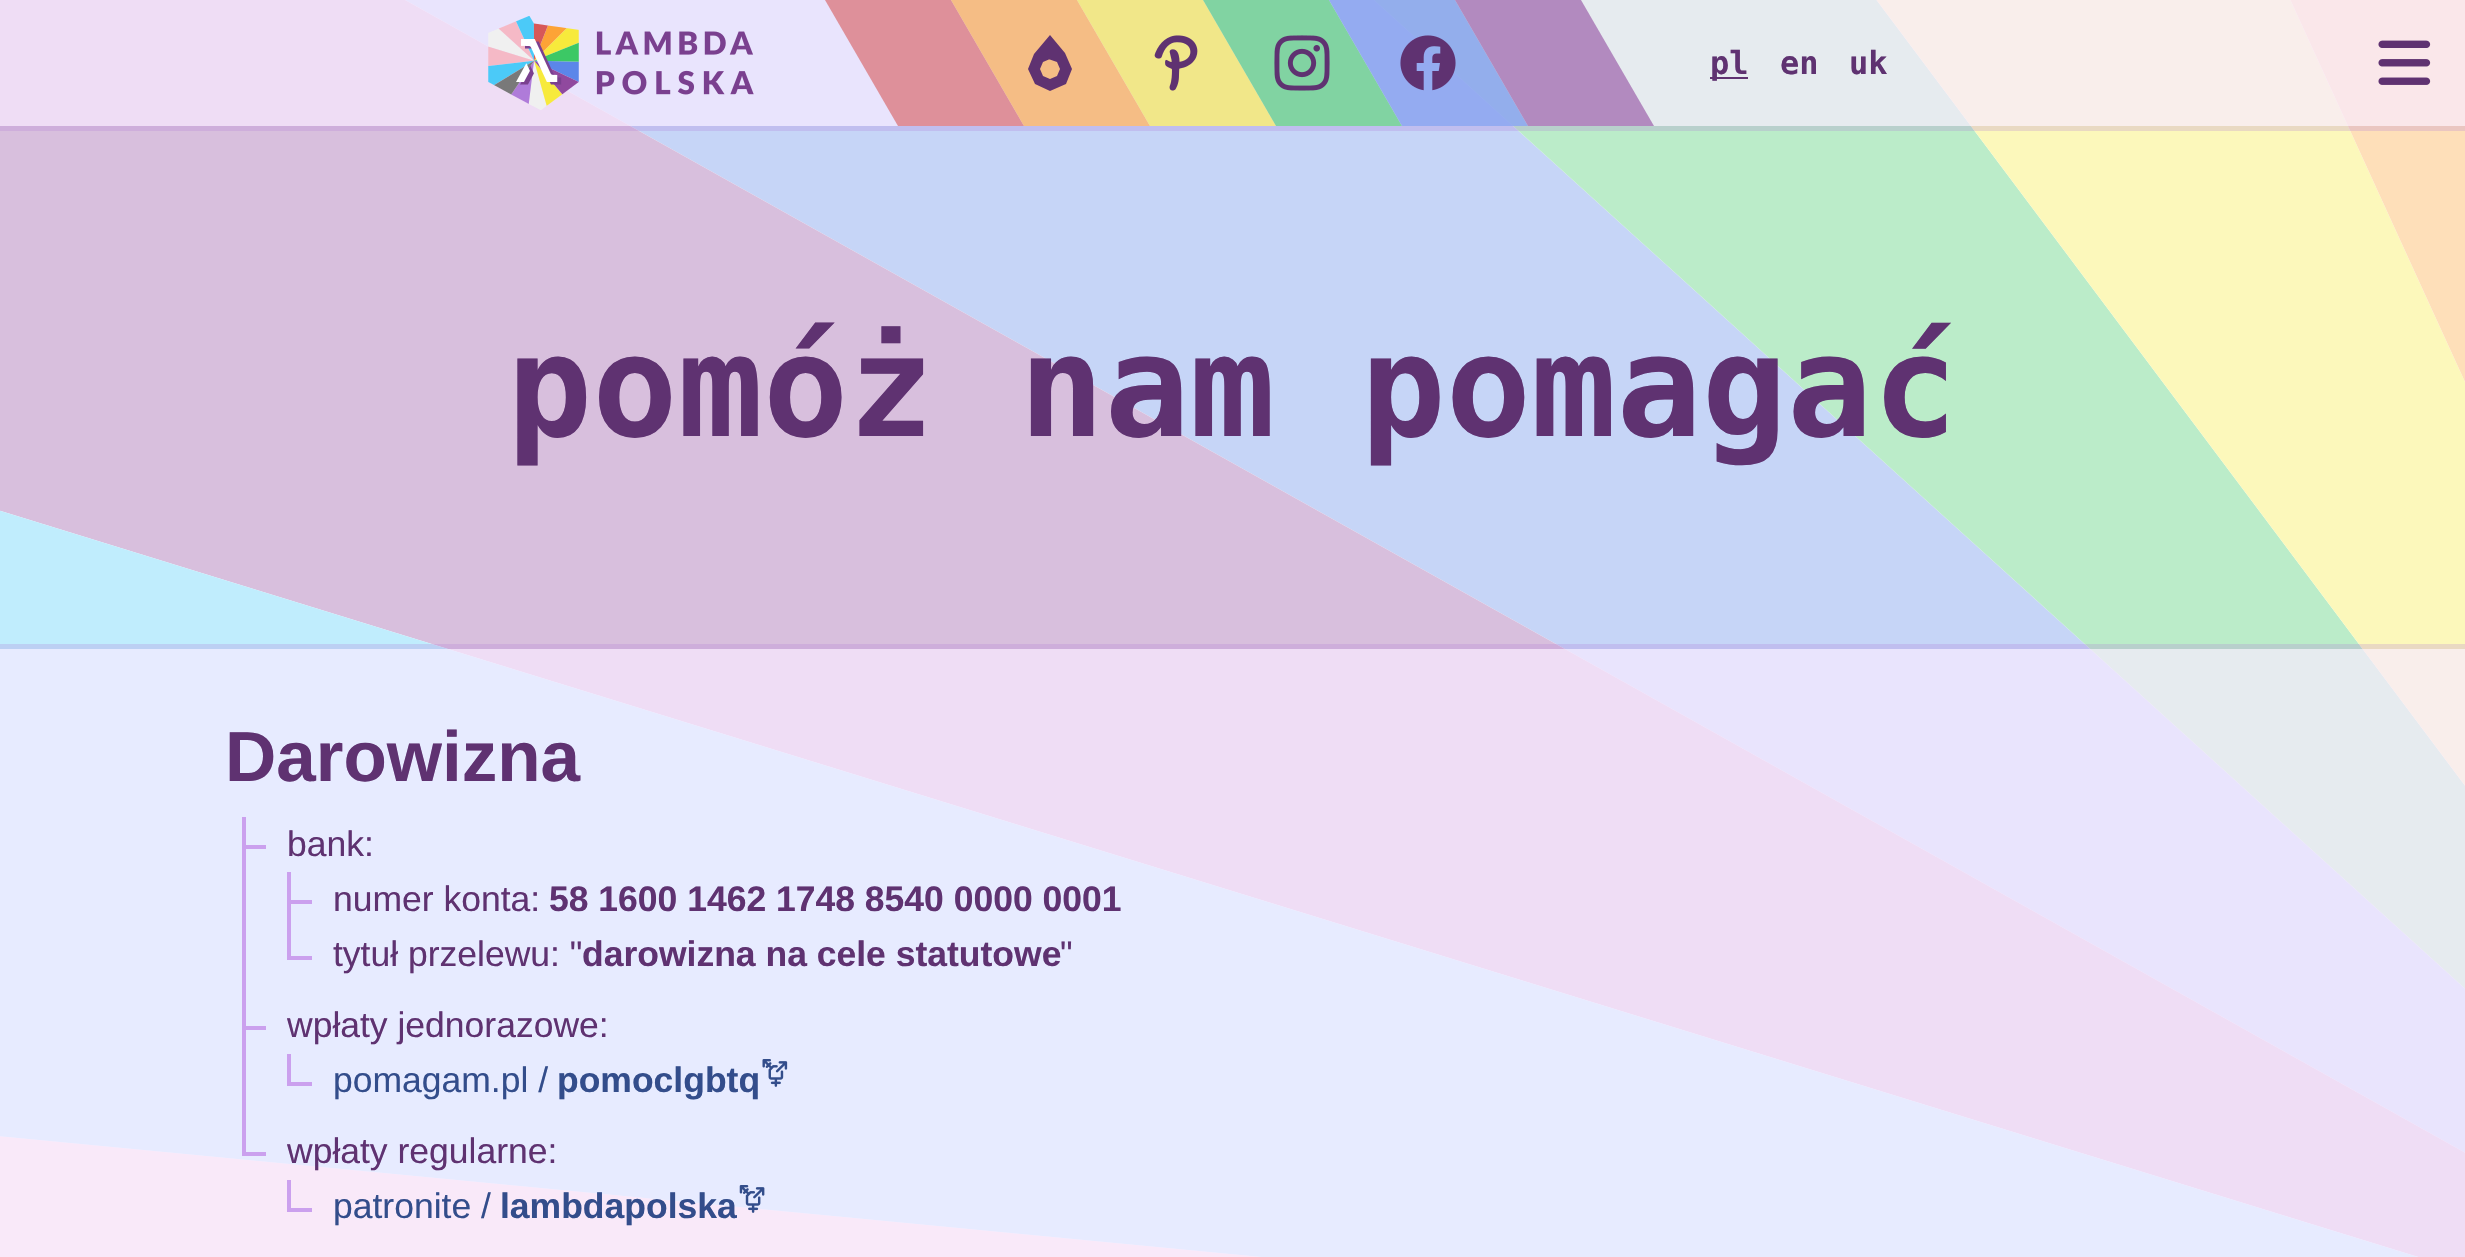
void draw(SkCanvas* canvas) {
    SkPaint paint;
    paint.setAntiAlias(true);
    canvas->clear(0xFFFFFFFF);
    canvas->drawImageRect(SkImages::DeferredFromEncodedData(SkData::MakeFromFileName("img1.png")), SkRect::MakeXYWH(0, 0, 2465, 1257), SkSamplingOptions());
    paint.setStyle(SkPaint::kStroke_Style);
    paint.setStrokeWidth(5);
    paint.setColor(0x40AF7BD9);
    canvas->drawRect(SkRect::MakeXYWH(-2.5f, -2.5f, 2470, 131), paint);
    paint.setStyle(SkPaint::kFill_Style);
    paint.setColor(0xB3F8E9FF);
    canvas->drawRect(SkRect::MakeXYWH(0, 0, 2465, 126), paint);
    canvas->drawImageRect(SkImages::DeferredFromEncodedData(SkData::MakeFromFileName("img2.png")), SkRect::MakeXYWH(488, 16, 266, 94), SkSamplingOptions());
    paint.setColor(0xFFDE909A);
    canvas->drawPath(SkPathBuilder().moveTo(825, 0).lineTo(951, 0).lineTo(1024, 126).lineTo(898, 126).close().detach(), paint);
    paint.setColor(0x99FDA336);
    canvas->drawPath(SkPathBuilder().moveTo(951, 0).lineTo(1077, 0).lineTo(1150, 126).lineTo(1024, 126).close().detach(), paint);
    paint.setColor(0xFF5F3271);
    canvas->drawPath(SkPathBuilder().moveTo(1050, 35).lineTo(1034, 54).lineTo(1057, 62).lineTo(1060, 69).lineTo(1057, 76).lineTo(1050, 79).lineTo(1043, 76).lineTo(1040, 69).lineTo(1043, 62).lineTo(1050, 59).lineTo(1034, 54).lineTo(1028, 69).lineTo(1035, 84).lineTo(1050, 91).lineTo(1066, 84).lineTo(1072, 69).lineTo(1065, 53).close().detach(), paint);
    paint.setColor(0x99F7EA3C);
    canvas->drawPath(SkPathBuilder().moveTo(1077, 0).lineTo(1203, 0).lineTo(1276, 126).lineTo(1150, 126).close().detach(), paint);
    canvas->drawImageRect(SkImages::DeferredFromEncodedData(SkData::MakeFromFileName("img3.png")), SkRect::MakeXYWH(1154, 35, 44, 56), SkSamplingOptions());
    paint.setColor(0x993CC865);
    canvas->drawPath(SkPathBuilder().moveTo(1203, 0).lineTo(1329, 0).lineTo(1402, 126).lineTo(1276, 126).close().detach(), paint);
    canvas->drawImageRect(SkImages::DeferredFromEncodedData(SkData::MakeFromFileName("img4.png")), SkRect::MakeXYWH(1274, 35, 56, 56), SkSamplingOptions());
    paint.setColor(0x995B86E9);
    canvas->drawPath(SkPathBuilder().moveTo(1329, 0).lineTo(1455, 0).lineTo(1528, 126).lineTo(1402, 126).close().detach(), paint);
    canvas->drawImageRect(SkImages::DeferredFromEncodedData(SkData::MakeFromFileName("img5.png")), SkRect::MakeXYWH(1400, 35, 56, 56), SkSamplingOptions());
    paint.setColor(0x9990499E);
    canvas->drawPath(SkPathBuilder().moveTo(1455, 0).lineTo(1581, 0).lineTo(1654, 126).lineTo(1528, 126).close().detach(), paint);
    paint.setColor(0xFF5F3271);
    canvas->drawRect(SkRect::MakeXYWH(1710, 77, 38, 2), paint);
    SkFont font1(fontMgr->matchFamilyStyle("DejaVu Sans Mono", SkFontStyle::Bold()), 32);
    font1.setSubpixel(true);
    canvas->drawString("pl", 1710, 74, font1, paint);
    canvas->drawString("en", 1780, 74, font1, paint);
    canvas->drawString("uk", 1849, 74, font1, paint);
    canvas->drawImageRect(SkImages::DeferredFromEncodedData(SkData::MakeFromFileName("img6.png")), SkRect::MakeXYWH(2378, 40, 53, 45), SkSamplingOptions());
    SkFont font2(fontMgr->matchFamilyStyle("DejaVu Sans Mono", SkFontStyle::Bold()), 141.75f);
    font2.setSubpixel(true);
    canvas->drawString("pomóż nam pomagać", 507, 436, font2, paint);
    paint.setStyle(SkPaint::kStroke_Style);
    paint.setColor(0x40AF7BD9);
    canvas->drawRect(SkRect::MakeXYWH(-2.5f, 646.5f, 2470, 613), paint);
    paint.setStyle(SkPaint::kFill_Style);
    paint.setColor(0xB3F8E9FF);
    canvas->drawRect(SkRect::MakeXYWH(0, 649, 2465, 608), paint);
    SkFont font3(fontMgr->matchFamilyStyle("Liberation Sans", SkFontStyle::Bold()), 71);
    font3.setSubpixel(true);
    paint.setColor(0xFF5F3271);
    canvas->drawString("Darowizna", 225, 781, font3, paint);
    paint.setColor(0xFFCBA0EE);
    canvas->drawRect(SkRect::MakeXYWH(242, 817, 4, 307), paint);
    canvas->drawRect(SkRect::MakeXYWH(242, 845, 24, 4), paint);
    SkFont font4(fontMgr->matchFamilyStyle("Liberation Sans", SkFontStyle::Normal()), 35.5f);
    font4.setSubpixel(true);
    paint.setColor(0xFF5F3271);
    canvas->drawString("bank:", 287, 856, font4, paint);
    paint.setColor(0xFFCBA0EE);
    canvas->drawRect(SkRect::MakeXYWH(287, 872, 4, 56), paint);
    canvas->drawRect(SkRect::MakeXYWH(287, 900, 25, 4), paint);
    paint.setColor(0xFF5F3271);
    canvas->drawString("numer konta:", 333, 911, font4, paint);
    SkFont font5(fontMgr->matchFamilyStyle("Liberation Sans", SkFontStyle::Bold()), 35.5f);
    font5.setSubpixel(true);
    canvas->drawString("58 1600 1462 1748 8540 0000 0001", 549, 911, font5, paint);
    paint.setColor(0xFFCBA0EE);
    canvas->drawRect(SkRect::MakeXYWH(287, 956, 25, 4), paint);
    canvas->drawRect(SkRect::MakeXYWH(287, 928, 4, 31), paint);
    paint.setColor(0xFF5F3271);
    canvas->drawString("tytuł przelewu: \"", 333, 966, font4, paint);
    canvas->drawString("darowizna na cele statutowe", 582, 966, font5, paint);
    canvas->drawString("\"", 1060, 966, font4, paint);
    paint.setColor(0xFFCBA0EE);
    canvas->drawRect(SkRect::MakeXYWH(242, 1026, 24, 4), paint);
    paint.setColor(0xFF5F3271);
    canvas->drawString("wpłaty jednorazowe:", 287, 1037, font4, paint);
    paint.setColor(0xFFCBA0EE);
    canvas->drawRect(SkRect::MakeXYWH(287, 1082, 25, 4), paint);
    canvas->drawRect(SkRect::MakeXYWH(287, 1054, 4, 31), paint);
    paint.setColor(0xFF334D8B);
    canvas->drawString("pomagam.pl /", 333, 1092, font4, paint);
    canvas->drawString("pomoclgbtq", 557, 1092, font5, paint);
    canvas->drawImageRect(SkImages::DeferredFromEncodedData(SkData::MakeFromFileName("img7.png")), SkRect::MakeXYWH(762, 1059, 26, 28), SkSamplingOptions());
    paint.setColor(0xFFCBA0EE);
    canvas->drawRect(SkRect::MakeXYWH(242, 1152, 24, 4), paint);
    canvas->drawRect(SkRect::MakeXYWH(242, 1124, 4, 31), paint);
    paint.setColor(0xFF5F3271);
    canvas->drawString("wpłaty regularne:", 287, 1163, font4, paint);
    paint.setColor(0xFFCBA0EE);
    canvas->drawRect(SkRect::MakeXYWH(287, 1208, 25, 4), paint);
    canvas->drawRect(SkRect::MakeXYWH(287, 1180, 4, 31), paint);
    paint.setColor(0xFF334D8B);
    canvas->drawString("patronite /", 333, 1218, font4, paint);
    canvas->drawString("lambdapolska", 500, 1218, font5, paint);
    canvas->drawImageRect(SkImages::DeferredFromEncodedData(SkData::MakeFromFileName("img8.png")), SkRect::MakeXYWH(739, 1185, 26, 28), SkSamplingOptions());
}
